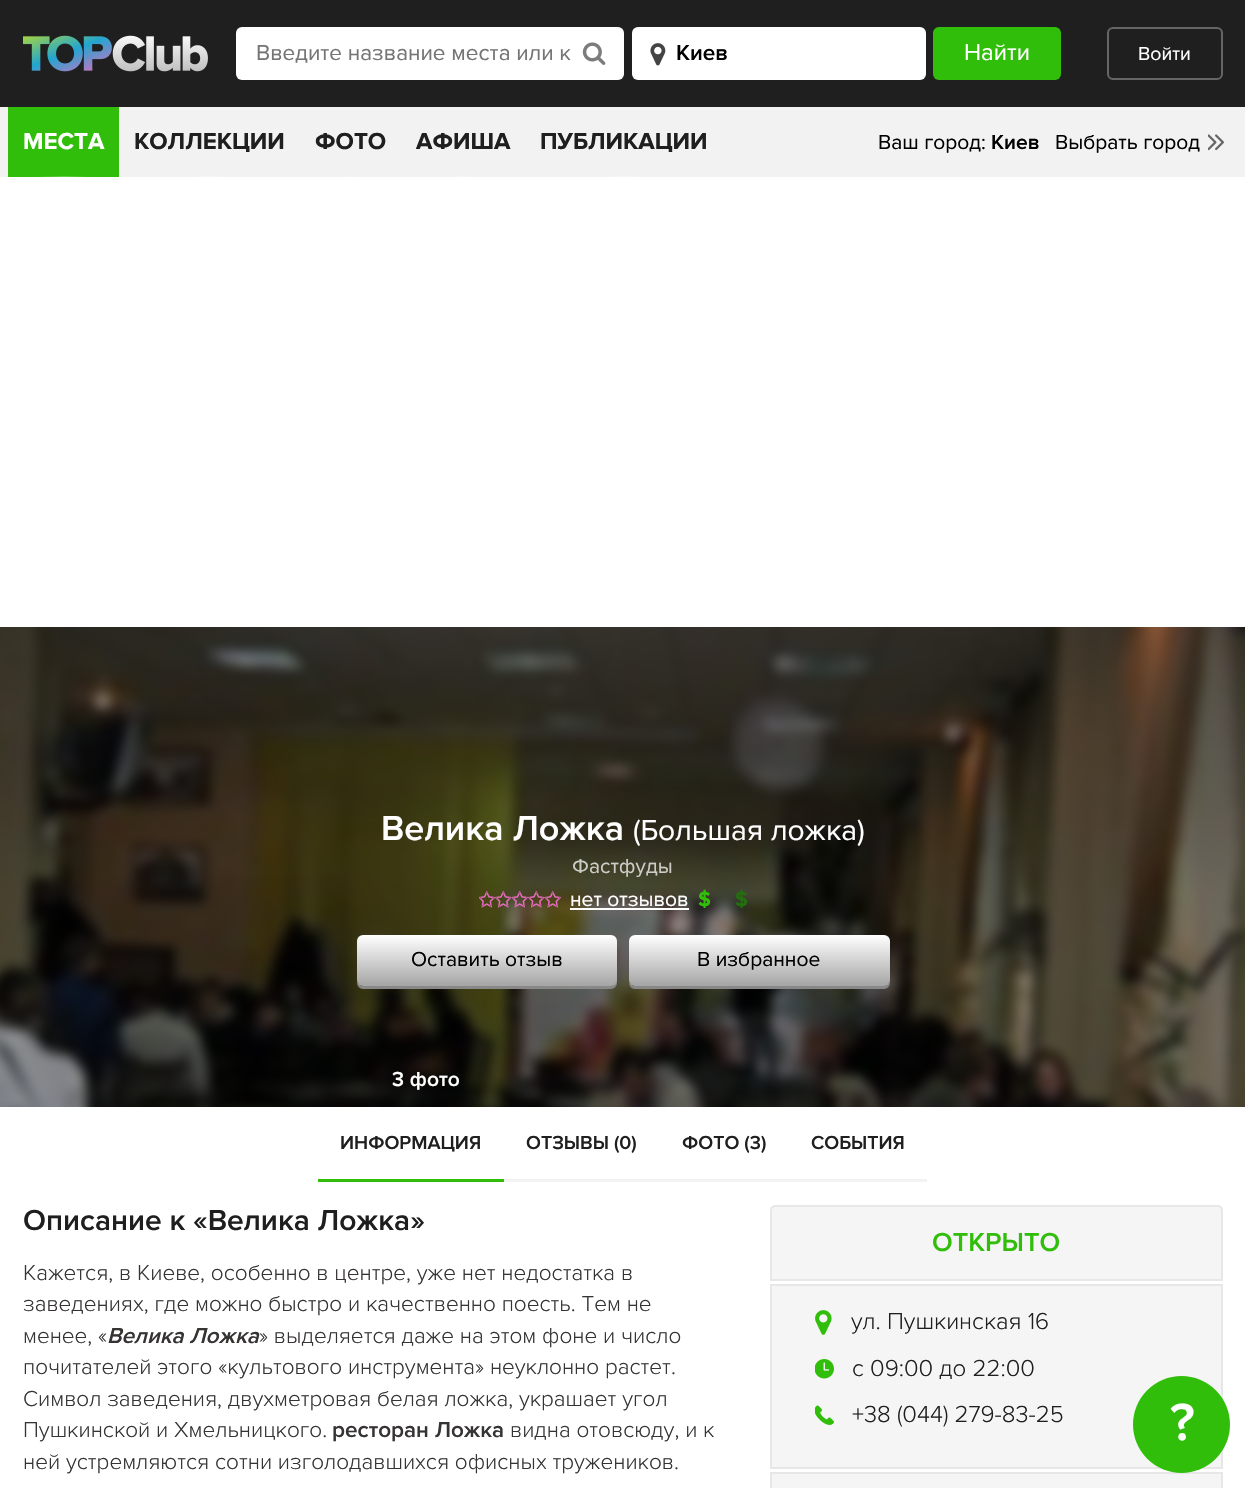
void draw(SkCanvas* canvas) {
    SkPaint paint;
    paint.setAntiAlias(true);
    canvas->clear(0xFFFFFFFF);
    paint.setColor(0xFF1F1F1F);
    canvas->drawRect(SkRect::MakeXYWH(0, 0, 1245, 107), paint);
    canvas->drawImageRect(SkImages::DeferredFromEncodedData(SkData::MakeFromFileName("img1.png")), SkRect::MakeXYWH(23, 35, 185, 37), SkSamplingOptions());
    paint.setColor(0xFFFFFFFF);
    canvas->drawRoundRect(SkRect::MakeXYWH(236, 27, 388, 53), 6, 6, paint);
    canvas->drawImageRect(SkImages::DeferredFromEncodedData(SkData::MakeFromFileName("img2.png")), SkRect::MakeXYWH(582, 42, 24, 23), SkSamplingOptions());
    SkFont font1(fontMgr->matchFamilyStyle("Proxima Nova", SkFontStyle::Normal()), 22.5f);
    font1.setSubpixel(true);
    paint.setColor(0xFF757575);
    canvas->drawString("Введите название места или к", 256, 60, font1, paint);
    paint.setColor(0xFFFFFFFF);
    canvas->drawRoundRect(SkRect::MakeXYWH(632, 27, 294, 53), 6, 6, paint);
    canvas->drawImageRect(SkImages::DeferredFromEncodedData(SkData::MakeFromFileName("img3.png")), SkRect::MakeXYWH(650, 43, 16, 23), SkSamplingOptions());
    SkFont font2(fontMgr->matchFamilyStyle("Proxima Nova", SkFontStyle(600, SkFontStyle::kNormal_Width, SkFontStyle::kUpright_Slant)), 22.5f);
    font2.setSubpixel(true);
    paint.setColor(0xFF000000);
    canvas->drawString("Киев", 676, 60, font2, paint);
    paint.setColor(0xFF31BE0B);
    canvas->drawRoundRect(SkRect::MakeXYWH(933, 27, 128, 53), 6, 6, paint);
    SkFont font3(fontMgr->matchFamilyStyle("Proxima Nova", SkFontStyle::Normal()), 24);
    font3.setSubpixel(true);
    paint.setColor(0xFFFFFFFF);
    canvas->drawString("Найти", 964, 60, font3, paint);
    paint.setStyle(SkPaint::kStroke_Style);
    paint.setStrokeWidth(2);
    paint.setColor(0xFF656565);
    canvas->drawRoundRect(SkRect::MakeXYWH(1108, 28, 114, 51), 5, 5, paint);
    SkFont font4(fontMgr->matchFamilyStyle("Proxima Nova", SkFontStyle::Normal()), 19.5f);
    font4.setSubpixel(true);
    paint.setStyle(SkPaint::kFill_Style);
    paint.setColor(0xFFFFFFFF);
    canvas->drawString("Войти", 1138, 60, font4, paint);
    paint.setColor(0xFFF2F2F2);
    canvas->drawRect(SkRect::MakeXYWH(0, 107, 1245, 70), paint);
    paint.setColor(0xFF31BE0B);
    canvas->drawRect(SkRect::MakeXYWH(8, 107, 111, 70), paint);
    SkFont font5(fontMgr->matchFamilyStyle("Proxima Nova", SkFontStyle::Bold()), 24);
    font5.setSubpixel(true);
    paint.setColor(0xFFFFFFFF);
    canvas->drawString("МЕСТА", 23, 149, font5, paint);
    {
        const SkColor colors[] = {0x00FFFFFF, 0x40FFFFFF, 0x00FFFFFF};
        const float stops[] = {0, 0.5f, 1};
        const SkPoint ends[] = {{38, 176}, {89, 176}};
        paint.setShader(SkGradientShader::MakeLinear(ends, colors, stops, 3, SkTileMode::kClamp));
        paint.setAlpha(255);
    }
    canvas->drawRect(SkRect::MakeXYWH(38, 176, 51, 1), paint);
    paint.setShader(nullptr);
    paint.setColor(0xFF1F1F1F);
    canvas->drawString("КОЛЛЕКЦИИ", 134, 149, font5, paint);
    {
        const SkColor colors[] = {0x00FFFFFF, 0x40FFFFFF, 0x00FFFFFF};
        const float stops[] = {0, 0.5f, 1};
        const SkPoint ends[] = {{149, 176}, {270, 176}};
        paint.setShader(SkGradientShader::MakeLinear(ends, colors, stops, 3, SkTileMode::kClamp));
        paint.setAlpha(255);
    }
    canvas->drawRect(SkRect::MakeXYWH(197, 176, 25, 1), paint);
    paint.setShader(nullptr);
    paint.setColor(0xFF1F1F1F);
    canvas->drawString("ФОТО", 315, 149, font5, paint);
    {
        const SkColor colors[] = {0x00FFFFFF, 0x40FFFFFF, 0x00FFFFFF};
        const float stops[] = {0, 0.5f, 1};
        const SkPoint ends[] = {{330, 176}, {371, 176}};
        paint.setShader(SkGradientShader::MakeLinear(ends, colors, stops, 3, SkTileMode::kClamp));
        paint.setAlpha(255);
    }
    canvas->drawRect(SkRect::MakeXYWH(346, 176, 9, 1), paint);
    paint.setShader(nullptr);
    paint.setColor(0xFF1F1F1F);
    canvas->drawString("АФИША", 416, 149, font5, paint);
    {
        const SkColor colors[] = {0x00FFFFFF, 0x40FFFFFF, 0x00FFFFFF};
        const float stops[] = {0, 0.5f, 1};
        const SkPoint ends[] = {{431, 176}, {495, 176}};
        paint.setShader(SkGradientShader::MakeLinear(ends, colors, stops, 3, SkTileMode::kClamp));
        paint.setAlpha(255);
    }
    canvas->drawRect(SkRect::MakeXYWH(456, 176, 14, 1), paint);
    paint.setShader(nullptr);
    paint.setColor(0xFF1F1F1F);
    canvas->drawString("ПУБЛИКАЦИИ", 540, 149, font5, paint);
    {
        const SkColor colors[] = {0x00FFFFFF, 0x40FFFFFF, 0x00FFFFFF};
        const float stops[] = {0, 0.5f, 1};
        const SkPoint ends[] = {{555, 176}, {693, 176}};
        paint.setShader(SkGradientShader::MakeLinear(ends, colors, stops, 3, SkTileMode::kClamp));
        paint.setAlpha(255);
    }
    canvas->drawRect(SkRect::MakeXYWH(610, 176, 28, 1), paint);
    SkFont font6(fontMgr->matchFamilyStyle("Proxima Nova", SkFontStyle::Normal()), 21);
    font6.setSubpixel(true);
    paint.setShader(nullptr);
    paint.setColor(0xFF000000);
    canvas->drawString("Ваш город:", 878, 149, font6, paint);
    SkFont font7(fontMgr->matchFamilyStyle("Proxima Nova", SkFontStyle(600, SkFontStyle::kNormal_Width, SkFontStyle::kUpright_Slant)), 21);
    font7.setSubpixel(true);
    canvas->drawString("Киев", 991, 149, font7, paint);
    canvas->drawString("Выбрать город", 1055, 149, font6, paint);
    canvas->drawImageRect(SkImages::DeferredFromEncodedData(SkData::MakeFromFileName("img4.png")), SkRect::MakeXYWH(1215, 134, 9, 17), SkSamplingOptions());
    canvas->drawImageRect(SkImages::DeferredFromEncodedData(SkData::MakeFromFileName("img5.png")), SkRect::MakeXYWH(1208, 134, 9, 17), SkSamplingOptions());
    canvas->drawImageRect(SkImages::DeferredFromEncodedData(SkData::MakeFromFileName("img6.png")), SkRect::MakeXYWH(0, 627, 1245, 2), SkSamplingOptions());
    canvas->drawImageRect(SkImages::DeferredFromEncodedData(SkData::MakeFromFileName("img7.png")), SkRect::MakeXYWH(0, 627, 1245, 480), SkSamplingOptions());
    SkFont font8(fontMgr->matchFamilyStyle("Proxima Nova", SkFontStyle(600, SkFontStyle::kNormal_Width, SkFontStyle::kUpright_Slant)), 36);
    font8.setSubpixel(true);
    paint.setColor(0xFFFFFFFF);
    canvas->drawString("Велика Ложка", 381, 840, font8, paint);
    SkFont font9(fontMgr->matchFamilyStyle("Proxima Nova", SkFontStyle::Normal()), 30);
    font9.setSubpixel(true);
    canvas->drawString("(Большая ложка)", 633, 840, font9, paint);
    paint.setColor(0xFFCDCDC7);
    canvas->drawString("Фастфуды", 572, 873, font6, paint);
    canvas->drawImageRect(SkImages::DeferredFromEncodedData(SkData::MakeFromFileName("img8.png")), SkRect::MakeXYWH(479, 891, 82, 17), SkSamplingOptions());
    paint.setColor(0xFFFFFFFF);
    canvas->drawString("нет отзывов", 570, 906, font6, paint);
    canvas->drawRect(SkRect::MakeXYWH(570, 908, 119, 2), paint);
    SkFont font10(fontMgr->matchFamilyStyle("Proxima Nova", SkFontStyle::Bold()), 21);
    font10.setSubpixel(true);
    paint.setColor(0xFF31BE0B);
    canvas->drawString("$", 698, 906, font10, paint);
    paint.setColor(0xFF236F0F);
    canvas->drawString("$", 735, 906, font10, paint);
    paint.setColor(0xFF888888);
    canvas->drawPath(SkPathBuilder().moveTo(357, 980).lineTo(357, 983).cubicTo(357, 986, 360, 989, 363, 989).lineTo(611, 989).cubicTo(614, 989, 617, 986, 617, 983).lineTo(617, 944).lineTo(616, 942).lineTo(616, 980).cubicTo(616, 983, 614, 986, 610, 986).lineTo(363, 986).cubicTo(360, 986, 357, 983, 357, 980).close().detach(), paint);
    {
        const SkColor colors[] = {0xFFFFFFFF, 0xFFA5A5A5};
        const float stops[] = {0, 1};
        const SkPoint ends[] = {{487, 935}, {487, 986}};
        paint.setShader(SkGradientShader::MakeLinear(ends, colors, stops, 2, SkTileMode::kClamp));
        paint.setAlpha(255);
    }
    canvas->drawRoundRect(SkRect::MakeXYWH(357, 935, 260, 51), 6, 6, paint);
    paint.setShader(nullptr);
    paint.setColor(0xFF000000);
    canvas->drawString("Оставить отзыв", 411, 966, font6, paint);
    paint.setColor(0xFF888888);
    canvas->drawPath(SkPathBuilder().moveTo(629, 982).lineTo(629, 983).cubicTo(629, 986, 632, 989, 635, 989).lineTo(884, 989).cubicTo(887, 989, 890, 986, 890, 983).lineTo(890, 944).lineTo(890, 942).lineTo(890, 980).cubicTo(890, 983, 887, 986, 884, 986).lineTo(634, 986).cubicTo(632, 986, 630, 984, 629, 982).close().detach(), paint);
    {
        const SkColor colors[] = {0xFFFFFFFF, 0xFFA5A5A5};
        const float stops[] = {0, 1};
        const SkPoint ends[] = {{759, 935}, {759, 986}};
        paint.setShader(SkGradientShader::MakeLinear(ends, colors, stops, 2, SkTileMode::kClamp));
        paint.setAlpha(255);
    }
    canvas->drawRoundRect(SkRect::MakeXYWH(629, 935, 261, 51), 6, 6, paint);
    paint.setShader(nullptr);
    paint.setColor(0xFF000000);
    canvas->drawString("В избранное", 697, 966, font6, paint);
    paint.setColor(0xFFFFFFFF);
    canvas->drawString("3 фото", 392, 1086, font7, paint);
    paint.setColor(0xFF31BE0B);
    canvas->drawRect(SkRect::MakeXYWH(318, 1179, 186, 3), paint);
    SkFont font11(fontMgr->matchFamilyStyle("Proxima Nova", SkFontStyle(600, SkFontStyle::kNormal_Width, SkFontStyle::kUpright_Slant)), 19.5f);
    font11.setSubpixel(true);
    paint.setColor(0xFF1F1F1F);
    canvas->drawString("ИНФОРМАЦИЯ", 340, 1149, font11, paint);
    paint.setColor(0xFFF3F3F3);
    canvas->drawRect(SkRect::MakeXYWH(504, 1179, 423, 3), paint);
    paint.setColor(0xFF1F1F1F);
    canvas->drawString("ОТЗЫВЫ (0)", 526, 1149, font11, paint);
    canvas->drawString("ФОТО (3)", 682, 1149, font11, paint);
    canvas->drawString("СОБЫТИЯ", 811, 1149, font11, paint);
    SkFont font12(fontMgr->matchFamilyStyle("Proxima Nova", SkFontStyle(600, SkFontStyle::kNormal_Width, SkFontStyle::kUpright_Slant)), 30);
    font12.setSubpixel(true);
    canvas->drawString("Описание к «Велика Ложка»", 23, 1230, font12, paint);
    SkFont font13(fontMgr->matchFamilyStyle("Proxima Nova", SkFontStyle(300, SkFontStyle::kNormal_Width, SkFontStyle::kUpright_Slant)), 22.5f);
    font13.setSubpixel(true);
    paint.setColor(0xFF363333);
    canvas->drawString("Кажется, в Киеве, особенно в центре, уже нет недостатка в", 23, 1280, font13, paint);
    canvas->drawString("заведениях, где можно быстро и качественно поесть. Тем не", 23, 1311, font13, paint);
    canvas->drawString("менее, «", 23, 1343, font13, paint);
    SkFont font14(fontMgr->matchFamilyStyle("Proxima Nova", SkFontStyle(600, SkFontStyle::kNormal_Width, SkFontStyle::kItalic_Slant)), 22.5f);
    font14.setSubpixel(true);
    canvas->drawString("Велика Ложка", 107, 1343, font14, paint);
    canvas->drawString("» выделяется даже на этом фоне и число", 259, 1343, font13, paint);
    canvas->drawString("почитателей этого «культового инструмента» неуклонно растет.", 23, 1374, font13, paint);
    canvas->drawString("Символ заведения, двухметровая белая ложка, украшает угол", 23, 1406, font13, paint);
    canvas->drawString("Пушкинской и Хмельницкого.", 23, 1437, font13, paint);
    canvas->drawString("ресторан Ложка", 332, 1437, font2, paint);
    canvas->drawString("видна отовсюду, и к", 510, 1437, font13, paint);
    canvas->drawString("ней устремляются сотни изголодавшихся офисных тружеников.", 23, 1469, font13, paint);
    paint.setColor(0xFFF5F5F5);
    canvas->drawPath(SkPathBuilder().moveTo(775, 1206).lineTo(1218, 1206).cubicTo(1220, 1206, 1222, 1208, 1222, 1210).lineTo(1222, 1280).lineTo(771, 1280).lineTo(771, 1210).cubicTo(771, 1208, 773, 1206, 775, 1206).close().detach(), paint);
    paint.setStyle(SkPaint::kStroke_Style);
    paint.setColor(0xFFE7E7E7);
    canvas->drawPath(SkPathBuilder().moveTo(775, 1206).lineTo(1218, 1206).cubicTo(1220, 1206, 1222, 1208, 1222, 1210).lineTo(1222, 1280).lineTo(771, 1280).lineTo(771, 1210).cubicTo(771, 1208, 773, 1206, 775, 1206).close().detach(), paint);
    SkFont font15(fontMgr->matchFamilyStyle("Proxima Nova", SkFontStyle(600, SkFontStyle::kNormal_Width, SkFontStyle::kUpright_Slant)), 27);
    font15.setSubpixel(true);
    paint.setStyle(SkPaint::kFill_Style);
    paint.setColor(0xFF31BE0B);
    canvas->drawString("ОТКРЫТО", 932, 1251, font15, paint);
    paint.setColor(0xFFF5F5F5);
    canvas->drawRect(SkRect::MakeXYWH(771, 1285, 451, 183), paint);
    paint.setStyle(SkPaint::kStroke_Style);
    paint.setColor(0xFFE7E7E7);
    canvas->drawRect(SkRect::MakeXYWH(771, 1285, 451, 183), paint);
    canvas->drawImageRect(SkImages::DeferredFromEncodedData(SkData::MakeFromFileName("img9.png")), SkRect::MakeXYWH(815, 1310, 17, 25), SkSamplingOptions());
    SkFont font16(fontMgr->matchFamilyStyle("Proxima Nova", SkFontStyle(300, SkFontStyle::kNormal_Width, SkFontStyle::kUpright_Slant)), 24);
    font16.setSubpixel(true);
    paint.setStyle(SkPaint::kFill_Style);
    paint.setColor(0xFF1F1F1F);
    canvas->drawString("ул. Пушкинская 16", 851, 1329, font16, paint);
    canvas->drawImageRect(SkImages::DeferredFromEncodedData(SkData::MakeFromFileName("img10.png")), SkRect::MakeXYWH(815, 1359, 19, 20), SkSamplingOptions());
    canvas->drawString("c 09:00 до 22:00", 852, 1376, font16, paint);
    canvas->drawImageRect(SkImages::DeferredFromEncodedData(SkData::MakeFromFileName("img11.png")), SkRect::MakeXYWH(815, 1405, 19, 20), SkSamplingOptions());
    canvas->drawString("+38 (044) 279-83-25", 852, 1422, font16, paint);
    paint.setColor(0xFFF5F5F5);
    canvas->drawRect(SkRect::MakeXYWH(771, 1473, 451, 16), paint);
    paint.setStyle(SkPaint::kStroke_Style);
    paint.setColor(0xFFE7E7E7);
    canvas->drawRect(SkRect::MakeXYWH(771, 1473, 451, 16), paint);
    paint.setStyle(SkPaint::kFill_Style);
    paint.setColor(0xFF31BE0A);
    canvas->drawCircle(1181.5f, 1424.5f, 48.5f, paint);
    SkFont font17(fontMgr->matchFamilyStyle("Proxima Nova", SkFontStyle(600, SkFontStyle::kNormal_Width, SkFontStyle::kUpright_Slant)), 54);
    font17.setSubpixel(true);
    paint.setColor(0xFFFFFFFF);
    canvas->drawString("?", 1170, 1440, font17, paint);
}
